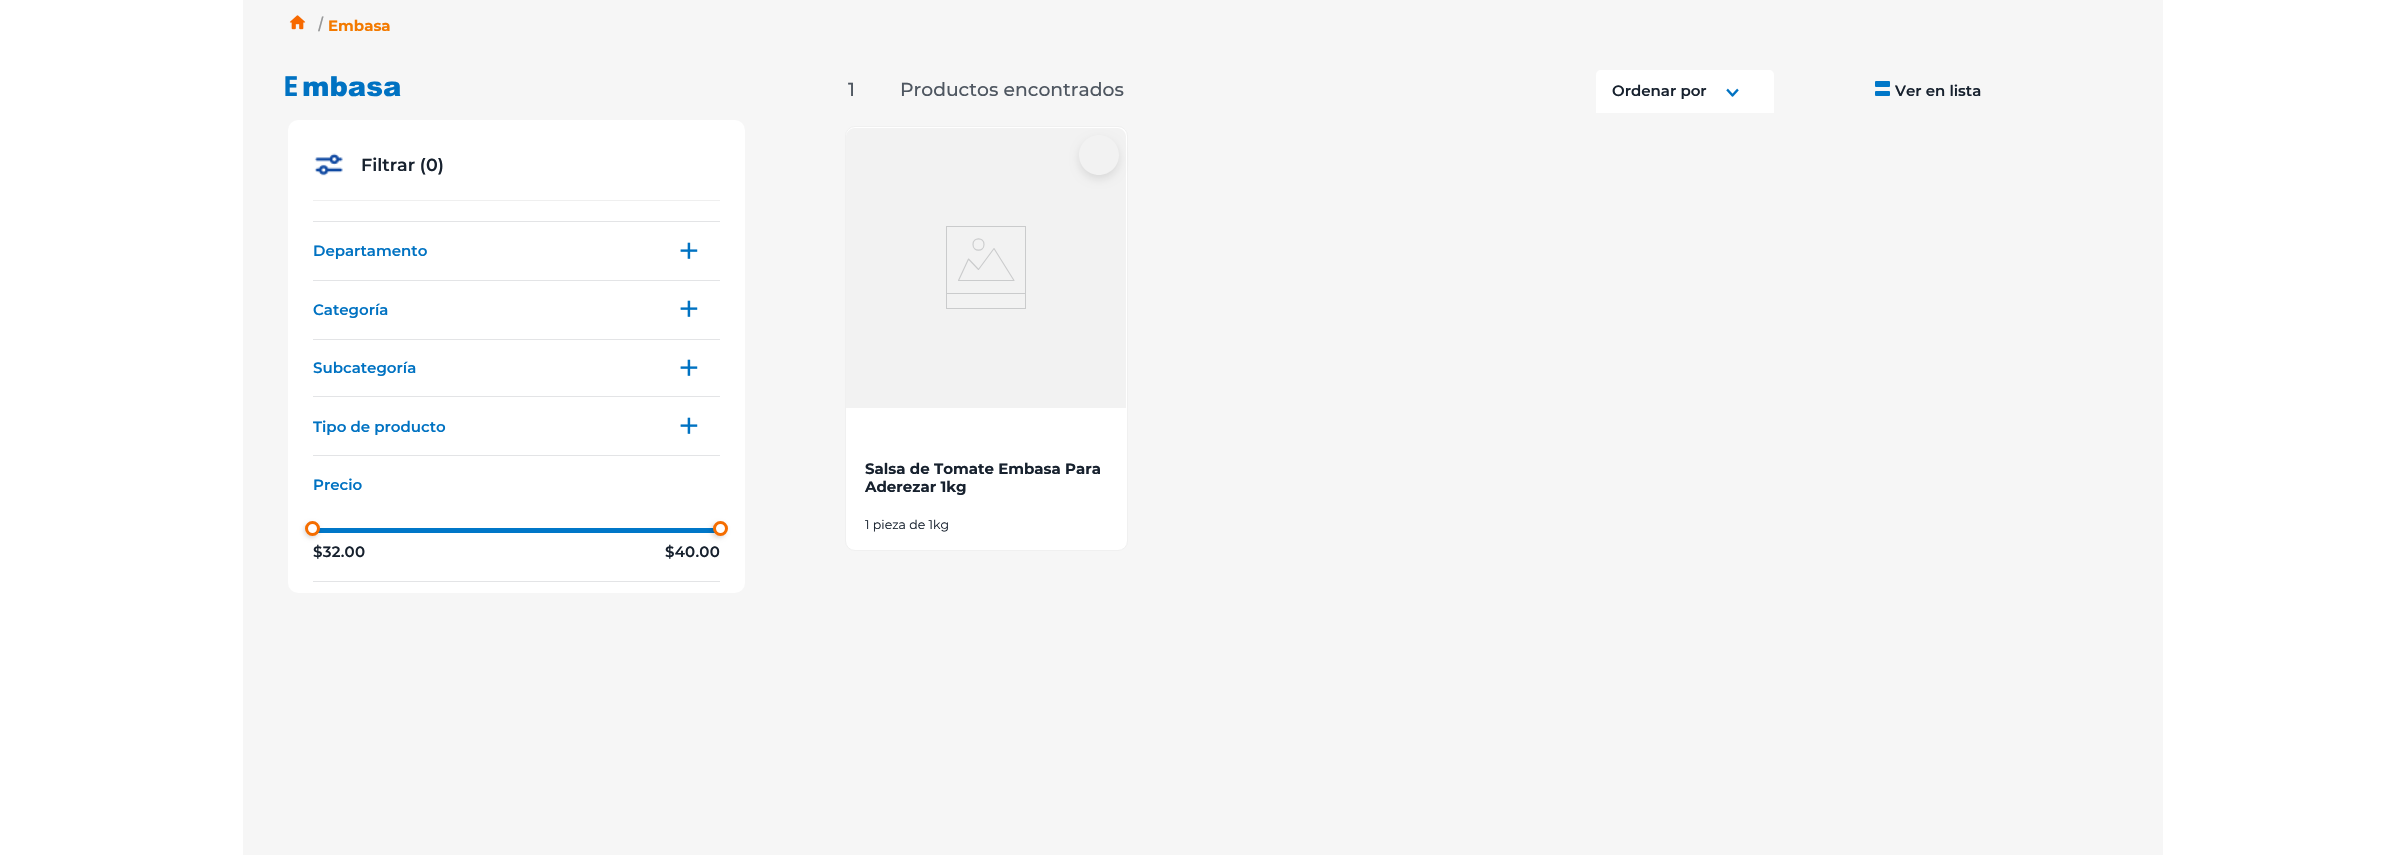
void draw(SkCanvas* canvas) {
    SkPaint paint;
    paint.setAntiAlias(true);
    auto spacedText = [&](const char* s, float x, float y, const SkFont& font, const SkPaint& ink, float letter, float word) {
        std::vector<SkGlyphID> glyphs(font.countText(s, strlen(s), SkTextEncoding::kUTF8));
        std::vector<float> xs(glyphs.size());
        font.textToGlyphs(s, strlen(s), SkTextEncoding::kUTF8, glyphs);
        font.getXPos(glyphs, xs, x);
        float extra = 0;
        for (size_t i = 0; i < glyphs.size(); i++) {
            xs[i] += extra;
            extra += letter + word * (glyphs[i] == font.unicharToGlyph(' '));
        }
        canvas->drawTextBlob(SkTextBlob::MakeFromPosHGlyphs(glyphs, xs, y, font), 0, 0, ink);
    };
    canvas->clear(0xFFFFFFFF);
    paint.setColor(0xFFF6F6F6);
    canvas->drawRect(SkRect::MakeXYWH(243, 0, 1920, 855), paint);
    canvas->drawImageRect(SkImages::DeferredFromEncodedData(SkData::MakeFromFileName("img1.png")), SkRect::MakeXYWH(289, 15, 17, 15), SkSamplingOptions());
    SkFont font1(fontMgr->matchFamilyStyle("Liberation Sans", SkFontStyle::Normal()), 20);
    font1.setSubpixel(true);
    paint.setColor(0xFF979899);
    canvas->drawString("/", 318, 31, font1, paint);
    SkFont font2(fontMgr->matchFamilyStyle("Montserrat", SkFontStyle(100, SkFontStyle::kNormal_Width, SkFontStyle::kUpright_Slant)), 15);
    font2.setSubpixel(true);
    paint.setColor(0xFFF37A00);
    canvas->drawString("Embasa", 328, 31, font2, paint);
    SkFont font3(fontMgr->matchFamilyStyle("Noto Sans", SkFontStyle::Bold()), 27.5f);
    font3.setSubpixel(true);
    paint.setColor(0xFF0072C2);
    canvas->drawString("E", 283, 96, font3, paint);
    SkFont font4(fontMgr->matchFamilyStyle("Arial", SkFontStyle(900, SkFontStyle::kNormal_Width, SkFontStyle::kUpright_Slant)), 27.5f);
    font4.setSubpixel(true);
    canvas->drawString("mbasa", 302, 96, font4, paint);
    SkFont font5(fontMgr->matchFamilyStyle("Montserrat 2", SkFontStyle(100, SkFontStyle::kNormal_Width, SkFontStyle::kUpright_Slant)), 18.75f);
    font5.setSubpixel(true);
    paint.setColor(0xFF4F5761);
    canvas->drawString("1", 848, 96, font5, paint);
    canvas->drawString("Productos encontrados", 900, 96, font5, paint);
    paint.setColor(0xFFFFFFFF);
    canvas->drawPath(SkPathBuilder().moveTo(1601, 70).lineTo(1769, 70).cubicTo(1772, 70, 1774, 72, 1774, 75).lineTo(1774, 113).lineTo(1596, 113).lineTo(1596, 75).cubicTo(1596, 72, 1598, 70, 1601, 70).close().detach(), paint);
    SkFont font6(fontMgr->matchFamilyStyle("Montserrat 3", SkFontStyle(100, SkFontStyle::kNormal_Width, SkFontStyle::kUpright_Slant)), 15);
    font6.setSubpixel(true);
    paint.setColor(0xFF17212E);
    canvas->drawString("Ordenar por", 1612, 96, font6, paint);
    canvas->drawImageRect(SkImages::DeferredFromEncodedData(SkData::MakeFromFileName("img2.png")), SkRect::MakeXYWH(1726, 88, 13, 9), SkSamplingOptions());
    paint.setColor(0xFF0077C8);
    canvas->drawRoundRect(SkRect::MakeXYWH(1875, 81, 15, 6), 1, 1, paint);
    canvas->drawRoundRect(SkRect::MakeXYWH(1875, 91, 15, 5), 1, 1, paint);
    paint.setColor(0xFF17212E);
    canvas->drawString("Ver en lista", 1895, 96, font6, paint);
    paint.setColor(0xFFFFFFFF);
    canvas->drawRoundRect(SkRect::MakeXYWH(288, 120, 457, 473), 10, 10, paint);
    paint.setColor(0xFFEFEFEF);
    canvas->drawRect(SkRect::MakeXYWH(313, 200, 407, 1), paint);
    canvas->drawImageRect(SkImages::DeferredFromEncodedData(SkData::MakeFromFileName("img3.png")), SkRect::MakeXYWH(314, 153, 29, 23), SkSamplingOptions());
    SkFont font7(fontMgr->matchFamilyStyle("Montserrat 3", SkFontStyle(100, SkFontStyle::kNormal_Width, SkFontStyle::kUpright_Slant)), 17.5f);
    font7.setSubpixel(true);
    paint.setColor(0xFF17212E);
    canvas->drawString("Filtrar (0)", 361, 171, font7, paint);
    paint.setColor(0xFFE3E4E6);
    canvas->drawRect(SkRect::MakeXYWH(313, 221, 407, 1), paint);
    canvas->drawRect(SkRect::MakeXYWH(313, 280, 407, 1), paint);
    paint.setColor(0xFF0072C2);
    canvas->drawString("Departamento", 313, 256, font6, paint);
    SkFont font8(fontMgr->matchFamilyStyle("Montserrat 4", SkFontStyle(100, SkFontStyle::kNormal_Width, SkFontStyle::kUpright_Slant)), 38);
    font8.setSubpixel(true);
    canvas->drawString("+", 678, 264, font8, paint);
    paint.setColor(0xFFE3E4E6);
    canvas->drawRect(SkRect::MakeXYWH(313, 339, 407, 1), paint);
    paint.setColor(0xFF0072C2);
    canvas->drawString("Categoría", 313, 315, font6, paint);
    canvas->drawString("+", 678, 322, font8, paint);
    paint.setColor(0xFFE3E4E6);
    canvas->drawRect(SkRect::MakeXYWH(313, 396, 407, 1), paint);
    paint.setColor(0xFF0072C2);
    canvas->drawString("Subcategoría", 313, 373, font6, paint);
    canvas->drawString("+", 678, 381, font8, paint);
    paint.setColor(0xFFE3E4E6);
    canvas->drawRect(SkRect::MakeXYWH(313, 455, 407, 1), paint);
    paint.setColor(0xFF0072C2);
    canvas->drawString("Tipo de producto", 313, 432, font6, paint);
    canvas->drawString("+", 678, 439, font8, paint);
    paint.setColor(0xFFE3E4E6);
    canvas->drawRect(SkRect::MakeXYWH(313, 581, 407, 1), paint);
    paint.setColor(0xFF0072C2);
    canvas->drawString("Precio", 313, 490, font6, paint);
    paint.setColor(0xFF0077C8);
    canvas->drawRect(SkRect::MakeXYWH(313, 528, 407, 5), paint);
    paint.setColor(0x26000000);
    paint.setMaskFilter(SkMaskFilter::MakeBlur(kNormal_SkBlurStyle, 2));
    canvas->drawRoundRect(SkRect::MakeXYWH(304, 523, 15, 15), 7.5f, 7.5f, paint);
    paint.setMaskFilter(nullptr);
    paint.setColor(0xFFFFFFFF);
    canvas->drawCircle(312.5f, 528.5f, 6, paint);
    paint.setStyle(SkPaint::kStroke_Style);
    paint.setStrokeWidth(3);
    paint.setColor(0xFFF56D00);
    canvas->drawCircle(312.5f, 528.5f, 6, paint);
    paint.setStyle(SkPaint::kFill_Style);
    paint.setColor(0x26000000);
    paint.setMaskFilter(SkMaskFilter::MakeBlur(kNormal_SkBlurStyle, 2));
    canvas->drawRoundRect(SkRect::MakeXYWH(711, 523, 15, 15), 7.5f, 7.5f, paint);
    paint.setMaskFilter(nullptr);
    paint.setColor(0xFFFFFFFF);
    canvas->drawCircle(720.5f, 528.5f, 6, paint);
    paint.setStyle(SkPaint::kStroke_Style);
    paint.setColor(0xFFF56D00);
    canvas->drawCircle(720.5f, 528.5f, 6, paint);
    paint.setStyle(SkPaint::kFill_Style);
    paint.setColor(0xFF17212E);
    spacedText("$32.00", 313, 557, font6, paint, 0.25f, 0);
    spacedText("$40.00", 665, 557, font6, paint, 0.25f, 0);
    paint.setColor(0xFFFFFFFF);
    canvas->drawRoundRect(SkRect::MakeXYWH(845.5f, 126.5f, 282, 424), 9.5f, 9.5f, paint);
    paint.setStyle(SkPaint::kStroke_Style);
    paint.setStrokeWidth(1);
    paint.setColor(0xFFF0F0F0);
    canvas->drawRoundRect(SkRect::MakeXYWH(845.5f, 126.5f, 282, 424), 9.5f, 9.5f, paint);
    paint.setStyle(SkPaint::kFill_Style);
    paint.setColor(0xFFF2F2F2);
    canvas->drawPath(SkPathBuilder().moveTo(855, 128).lineTo(1117, 128).cubicTo(1122, 128, 1126, 132, 1126, 137).lineTo(1126, 408).lineTo(846, 408).lineTo(846, 137).cubicTo(846, 132, 850, 128, 855, 128).close().detach(), paint);
    canvas->save();
    canvas->clipPath(SkPathBuilder(SkPathFillType::kEvenOdd).moveTo(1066, 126).lineTo(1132, 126).lineTo(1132, 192).lineTo(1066, 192).close().moveTo(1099, 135).cubicTo(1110, 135, 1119, 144, 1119, 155).cubicTo(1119, 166, 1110, 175, 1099, 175).cubicTo(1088, 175, 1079, 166, 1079, 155).cubicTo(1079, 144, 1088, 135, 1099, 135).close().detach(), true);
    paint.setColor(0x1A000000);
    paint.setMaskFilter(SkMaskFilter::MakeBlur(kNormal_SkBlurStyle, 4));
    canvas->drawRoundRect(SkRect::MakeXYWH(1079, 139, 40, 40), 20, 20, paint);
    paint.setMaskFilter(nullptr);
    canvas->restore();
    paint.setStyle(SkPaint::kStroke_Style);
    paint.setColor(0xFFCACBCC);
    canvas->drawRect(SkRect::MakeXYWH(946.5f, 226.5f, 79, 82), paint);
    paint.setStrokeWidth(1.1f);
    paint.setStrokeCap(SkPaint::kRound_Cap);
    paint.setStrokeJoin(SkPaint::kRound_Join);
    canvas->drawPath(SkPathBuilder().moveTo(958.5f, 280.5f).lineTo(968.5f, 259).lineTo(978.5f, 269.5f).lineTo(994, 248.5f).lineTo(1014, 280.5f).close().detach(), paint);
    paint.setStrokeCap(SkPaint::kButt_Cap);
    paint.setStrokeJoin(SkPaint::kMiter_Join);
    canvas->drawPath(SkPathBuilder().moveTo(984, 244.5f).cubicTo(984, 252, 973, 252, 973, 244.5f).cubicTo(973, 237, 984, 237, 984, 244.5f).close().detach(), paint);
    paint.setStyle(SkPaint::kFill_Style);
    canvas->drawRect(SkRect::MakeXYWH(947, 293, 79, 1), paint);
    paint.setColor(0xFF17212E);
    canvas->drawString("Salsa de Tomate Embasa Para", 865, 474, font2, paint);
    canvas->drawString("Aderezar 1kg", 865, 492, font2, paint);
    SkFont font9(fontMgr->matchFamilyStyle("Montserrat 4", SkFontStyle(100, SkFontStyle::kNormal_Width, SkFontStyle::kUpright_Slant)), 12.5f);
    font9.setSubpixel(true);
    canvas->drawString("1 pieza de 1kg", 865, 529, font9, paint);
}
